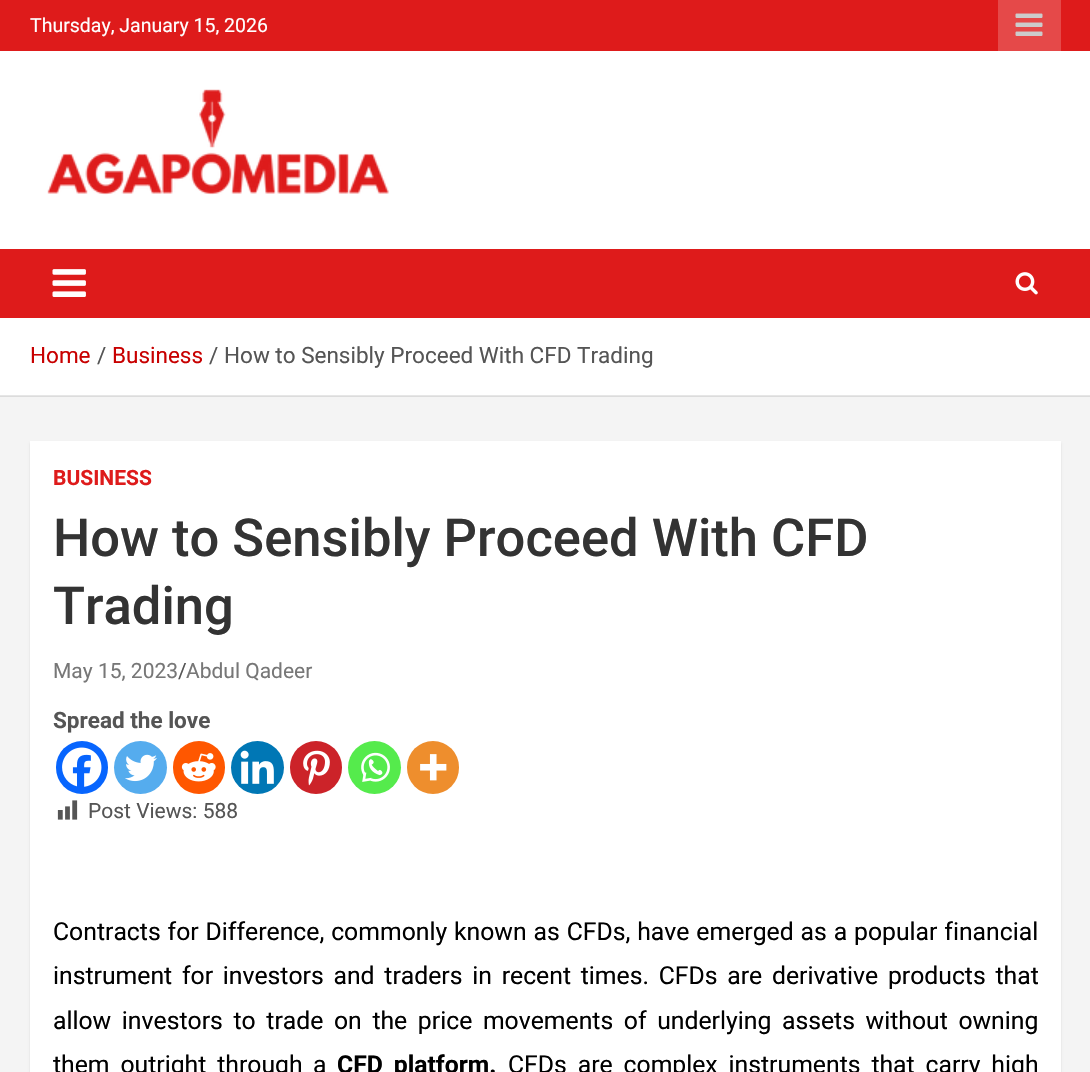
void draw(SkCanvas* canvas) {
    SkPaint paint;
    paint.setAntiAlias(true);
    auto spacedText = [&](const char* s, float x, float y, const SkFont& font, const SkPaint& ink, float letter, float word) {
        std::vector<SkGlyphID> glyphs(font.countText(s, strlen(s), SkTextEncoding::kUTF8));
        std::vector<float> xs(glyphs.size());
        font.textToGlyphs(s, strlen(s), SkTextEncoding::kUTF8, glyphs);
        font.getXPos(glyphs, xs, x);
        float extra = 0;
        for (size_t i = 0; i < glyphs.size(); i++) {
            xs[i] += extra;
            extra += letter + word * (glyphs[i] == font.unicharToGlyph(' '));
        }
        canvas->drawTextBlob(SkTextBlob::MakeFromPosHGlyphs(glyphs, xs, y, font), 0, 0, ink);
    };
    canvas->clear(0xFFF4F4F4);
    paint.setColor(0xFFDCDCDC);
    canvas->drawRect(SkRect::MakeXYWH(0, 396, 1090, 1), paint);
    paint.setColor(0xFFDE1B1B);
    canvas->drawRect(SkRect::MakeXYWH(0, 0, 1090, 51), paint);
    SkFont font1(fontMgr->matchFamilyStyle("Roboto", SkFontStyle::Normal()), 19.5f);
    font1.setSubpixel(true);
    paint.setColor(0xFFFFFFFF);
    canvas->drawString("Thursday, January 15, 2026", 30, 32, font1, paint);
    paint.setColor(0xFFE54949);
    canvas->drawRect(SkRect::MakeXYWH(998, 0, 63, 51), paint);
    canvas->drawImageRect(SkImages::DeferredFromEncodedData(SkData::MakeFromFileName("img1.png")), SkRect::MakeXYWH(1015, 13, 28, 23), SkSamplingOptions());
    paint.setColor(0xFFFFFFFF);
    canvas->drawRect(SkRect::MakeXYWH(0, 51, 1090, 198), paint);
    canvas->drawImageRect(SkImages::DeferredFromEncodedData(SkData::MakeFromFileName("img2.png")), SkRect::MakeXYWH(47, 89, 342, 106), SkSamplingOptions());
    paint.setColor(0xFFDE1B1B);
    canvas->drawRect(SkRect::MakeXYWH(0, 249, 1090, 69), paint);
    canvas->drawImageRect(SkImages::DeferredFromEncodedData(SkData::MakeFromFileName("img3.png")), SkRect::MakeXYWH(52, 269, 34, 28), SkSamplingOptions());
    canvas->drawImageRect(SkImages::DeferredFromEncodedData(SkData::MakeFromFileName("img4.png")), SkRect::MakeXYWH(1015, 272, 23, 23), SkSamplingOptions());
    paint.setColor(0xFFFFFFFF);
    canvas->drawRect(SkRect::MakeXYWH(0, 318, 1090, 77), paint);
    paint.setColor(0xFFE6E6E6);
    canvas->drawRect(SkRect::MakeXYWH(0, 395, 1090, 1), paint);
    SkFont font2(fontMgr->matchFamilyStyle("Roboto", SkFontStyle::Normal()), 22.5f);
    font2.setSubpixel(true);
    paint.setColor(0xFFC80000);
    canvas->drawString("Home", 30, 363, font2, paint);
    paint.setColor(0xFF555555);
    canvas->drawString("/", 97, 363, font2, paint);
    paint.setColor(0xFFC80000);
    canvas->drawString("Business", 112, 363, font2, paint);
    paint.setColor(0xFF555555);
    canvas->drawString("/", 209, 363, font2, paint);
    canvas->drawString("How to Sensibly Proceed With CFD Trading", 224, 363, font2, paint);
    paint.setColor(0x1A000000);
    paint.setMaskFilter(SkMaskFilter::MakeBlur(kNormal_SkBlurStyle, 1));
    canvas->drawRect(SkRect::MakeXYWH(30, 443, 1031, 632), paint);
    paint.setMaskFilter(nullptr);
    paint.setColor(0xFFFFFFFF);
    canvas->drawRect(SkRect::MakeXYWH(30, 441, 1031, 631), paint);
    SkFont font3(fontMgr->matchFamilyStyle("Roboto", SkFontStyle::Bold()), 21);
    font3.setSubpixel(true);
    paint.setColor(0xFFDE1B1B);
    canvas->drawString("BUSINESS", 53, 485, font3, paint);
    SkFont font4(fontMgr->matchFamilyStyle("Roboto", SkFontStyle(500, SkFontStyle::kNormal_Width, SkFontStyle::kUpright_Slant)), 52.5f);
    font4.setSubpixel(true);
    paint.setColor(0xFF333333);
    canvas->drawString("How to Sensibly Proceed With CFD", 53, 556, font4, paint);
    canvas->drawString("Trading", 53, 624, font4, paint);
    SkFont font5(fontMgr->matchFamilyStyle("Roboto", SkFontStyle::Normal()), 21);
    font5.setSubpixel(true);
    paint.setColor(0xFF777777);
    canvas->drawString("May 15, 2023", 53, 678, font5, paint);
    paint.setColor(0xFF555555);
    canvas->drawString("/", 178, 678, font5, paint);
    paint.setColor(0xFF777777);
    canvas->drawString("Abdul Qadeer", 186, 678, font5, paint);
    SkFont font6(fontMgr->matchFamilyStyle("Roboto", SkFontStyle::Bold()), 22.5f);
    font6.setSubpixel(true);
    paint.setColor(0xFF555555);
    canvas->drawString("Spread the love", 53, 728, font6, paint);
    paint.setColor(0xFF0765FE);
    canvas->drawRoundRect(SkRect::MakeXYWH(56, 741, 52, 53), 26, 26, paint);
    canvas->drawImageRect(SkImages::DeferredFromEncodedData(SkData::MakeFromFileName("img5.png")), SkRect::MakeXYWH(62, 747, 40, 40), SkSamplingOptions());
    paint.setColor(0xFF55ACEE);
    canvas->drawCircle(140.5f, 767.5f, 26.5f, paint);
    canvas->drawImageRect(SkImages::DeferredFromEncodedData(SkData::MakeFromFileName("img6.png")), SkRect::MakeXYWH(125, 754, 32, 28), SkSamplingOptions());
    paint.setColor(0xFFFF5700);
    canvas->drawRoundRect(SkRect::MakeXYWH(173, 741, 52, 53), 26, 26, paint);
    canvas->drawImageRect(SkImages::DeferredFromEncodedData(SkData::MakeFromFileName("img7.png")), SkRect::MakeXYWH(181, 753, 35, 29), SkSamplingOptions());
    paint.setColor(0xFF0077B5);
    canvas->drawCircle(257.5f, 767.5f, 26.5f, paint);
    canvas->drawImageRect(SkImages::DeferredFromEncodedData(SkData::MakeFromFileName("img8.png")), SkRect::MakeXYWH(240, 750, 34, 34), SkSamplingOptions());
    paint.setColor(0xFFCC2329);
    canvas->drawRoundRect(SkRect::MakeXYWH(290, 741, 52, 53), 26, 26, paint);
    canvas->drawImageRect(SkImages::DeferredFromEncodedData(SkData::MakeFromFileName("img9.png")), SkRect::MakeXYWH(303, 750, 27, 36), SkSamplingOptions());
    paint.setColor(0xFF55EB4C);
    canvas->drawCircle(374.5f, 767.5f, 26.5f, paint);
    canvas->drawImageRect(SkImages::DeferredFromEncodedData(SkData::MakeFromFileName("img10.png")), SkRect::MakeXYWH(361, 752, 29, 30), SkSamplingOptions());
    paint.setColor(0xFFEE8E2D);
    canvas->drawRoundRect(SkRect::MakeXYWH(407, 741, 52, 53), 26, 26, paint);
    canvas->drawImageRect(SkImages::DeferredFromEncodedData(SkData::MakeFromFileName("img11.png")), SkRect::MakeXYWH(420, 754, 27, 27), SkSamplingOptions());
    canvas->drawImageRect(SkImages::DeferredFromEncodedData(SkData::MakeFromFileName("img12.png")), SkRect::MakeXYWH(57, 800, 21, 20), SkSamplingOptions());
    paint.setColor(0xFF555555);
    canvas->drawString("Post Views: 588", 88, 818, font5, paint);
    SkFont font7(fontMgr->matchFamilyStyle("Roboto", SkFontStyle::Normal()), 24.75f);
    font7.setSubpixel(true);
    paint.setColor(0xFF000000);
    spacedText("Contracts for Difference, commonly known as CFDs, have emerged as a popular financial", 53, 940, font7, paint, 0, 0.75f);
    spacedText("instrument for investors and traders in recent times. CFDs are derivative products that", 53, 984, font7, paint, 0, 3.6f);
    spacedText("allow investors to trade on the price movements of underlying assets without owning", 53, 1029, font7, paint, 0, 4.5f);
    spacedText("them outright through", 53, 1073, font7, paint, 0, 4.75f);
    canvas->drawString("a", 313, 1073, font7, paint);
    SkFont font8(fontMgr->matchFamilyStyle("Roboto", SkFontStyle::Bold()), 24.75f);
    font8.setSubpixel(true);
    spacedText("CFD platform.", 337, 1073, font8, paint, 0, 4.75f);
    spacedText("CFDs are complex instruments that carry high", 508, 1073, font7, paint, 0, 4.75f);
}
